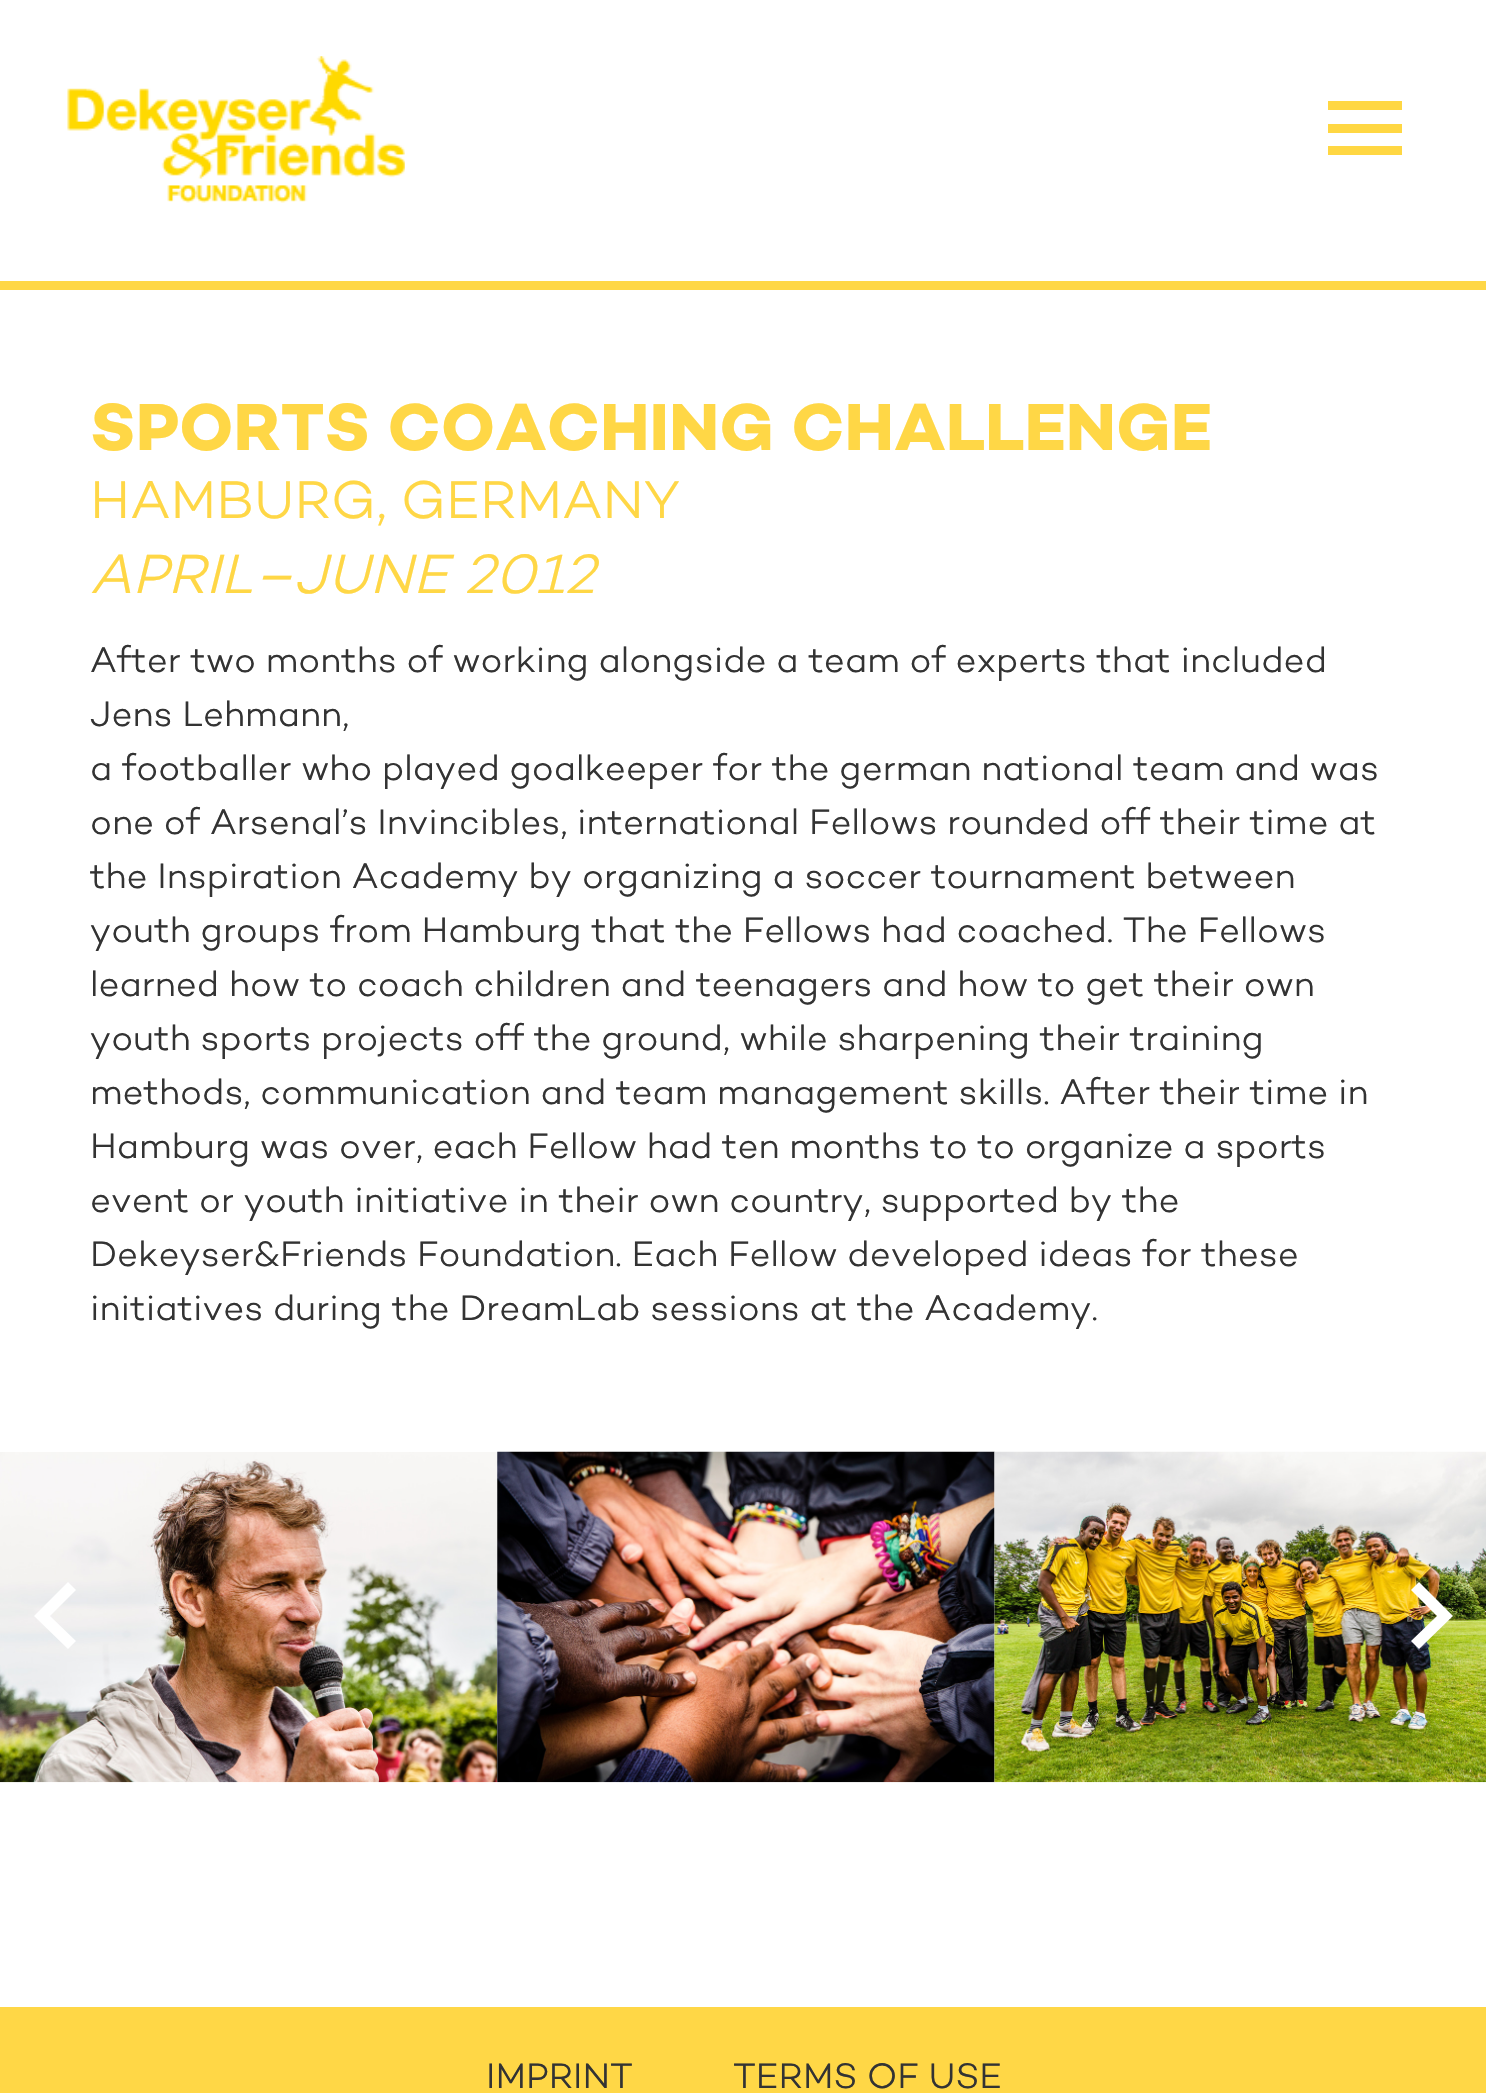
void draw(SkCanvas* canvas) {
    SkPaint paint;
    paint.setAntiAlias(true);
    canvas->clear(0xFFFFFFFF);
    paint.setColor(0xFFFFD743);
    canvas->drawRect(SkRect::MakeXYWH(1328, 101, 74, 9), paint);
    canvas->drawRect(SkRect::MakeXYWH(1328, 124, 74, 9), paint);
    canvas->drawRect(SkRect::MakeXYWH(1328, 146, 74, 9), paint);
    paint.setColor(0xFFFFD746);
    canvas->drawRect(SkRect::MakeXYWH(0, 281, 1486, 9), paint);
    canvas->drawImageRect(SkImages::DeferredFromEncodedData(SkData::MakeFromFileName("img1.png")), SkRect::MakeXYWH(67, 56, 338, 147), SkSamplingOptions());
    SkFont font1(fontMgr->matchFamilyStyle("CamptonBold", SkFontStyle::Bold()), 67.5f);
    font1.setSubpixel(true);
    canvas->drawString("SPORTS COACHING CHALLENGE", 90, 450, font1, paint);
    SkFont font2(fontMgr->matchFamilyStyle("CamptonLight", SkFontStyle(300, SkFontStyle::kNormal_Width, SkFontStyle::kUpright_Slant)), 54);
    font2.setSubpixel(true);
    canvas->drawString("HAMBURG, GERMANY", 90, 518, font2, paint);
    SkFont font3(fontMgr->matchFamilyStyle("CamptonLight", SkFontStyle(300, SkFontStyle::kNormal_Width, SkFontStyle::kItalic_Slant)), 56.25f);
    font3.setSubpixel(true);
    canvas->drawString("APRIL–JUNE 2012", 90, 593, font3, paint);
    SkFont font4(fontMgr->matchFamilyStyle("CamptonLight", SkFontStyle(300, SkFontStyle::kNormal_Width, SkFontStyle::kUpright_Slant)), 36);
    font4.setSubpixel(true);
    paint.setColor(0xFF333333);
    canvas->drawString("After two months of working alongside a team of experts that included", 90, 672, font4, paint);
    canvas->drawString("Jens Lehmann,", 90, 726, font4, paint);
    canvas->drawString("a footballer who played goalkeeper for the german national team and was", 90, 780, font4, paint);
    canvas->drawString("one of Arsenal’s Invincibles, international Fellows rounded off their time at", 90, 834, font4, paint);
    canvas->drawString("the Inspiration Academy by organizing a soccer tournament between", 90, 888, font4, paint);
    canvas->drawString("youth groups from Hamburg that the Fellows had coached. The Fellows", 90, 942, font4, paint);
    canvas->drawString("learned how to coach children and teenagers and how to get their own", 90, 996, font4, paint);
    canvas->drawString("youth sports projects off the ground, while sharpening their training", 90, 1050, font4, paint);
    canvas->drawString("methods, communication and team management skills. After their time in", 90, 1104, font4, paint);
    canvas->drawString("Hamburg was over, each Fellow had ten months to to organize a sports", 90, 1158, font4, paint);
    canvas->drawString("event or youth initiative in their own country, supported by the", 90, 1212, font4, paint);
    canvas->drawString("Dekeyser&Friends Foundation. Each Fellow developed ideas for these", 90, 1266, font4, paint);
    canvas->drawString("initiatives during the DreamLab sessions at the Academy.", 90, 1320, font4, paint);
    canvas->drawImageRect(SkImages::DeferredFromEncodedData(SkData::MakeFromFileName("img2.png")), SkRect::MakeXYWH(0, 1452, 498, 331), SkSamplingOptions());
    canvas->drawImageRect(SkImages::DeferredFromEncodedData(SkData::MakeFromFileName("img3.png")), SkRect::MakeXYWH(497, 1451, 498, 332), SkSamplingOptions());
    canvas->drawImageRect(SkImages::DeferredFromEncodedData(SkData::MakeFromFileName("img4.png")), SkRect::MakeXYWH(994, 1451, 492, 332), SkSamplingOptions());
    paint.setColor(0xFFFFFFFF);
    canvas->drawPath(SkPathBuilder().moveTo(68, 1649).lineTo(76, 1641).lineTo(50, 1616).lineTo(76, 1590).lineTo(68, 1582).lineTo(34, 1616).close().detach(), paint);
    canvas->drawPath(SkPathBuilder().moveTo(1419, 1582).lineTo(1411, 1590).lineTo(1437, 1616).lineTo(1411, 1641).lineTo(1419, 1649).lineTo(1453, 1616).close().detach(), paint);
    paint.setColor(0xFFFFD746);
    canvas->drawRect(SkRect::MakeXYWH(0, 2007, 1486, 86), paint);
    paint.setColor(0xFF333333);
    canvas->drawString("IMPRINT", 486, 2088, font4, paint);
    canvas->drawString("TERMS OF USE", 733, 2088, font4, paint);
}
